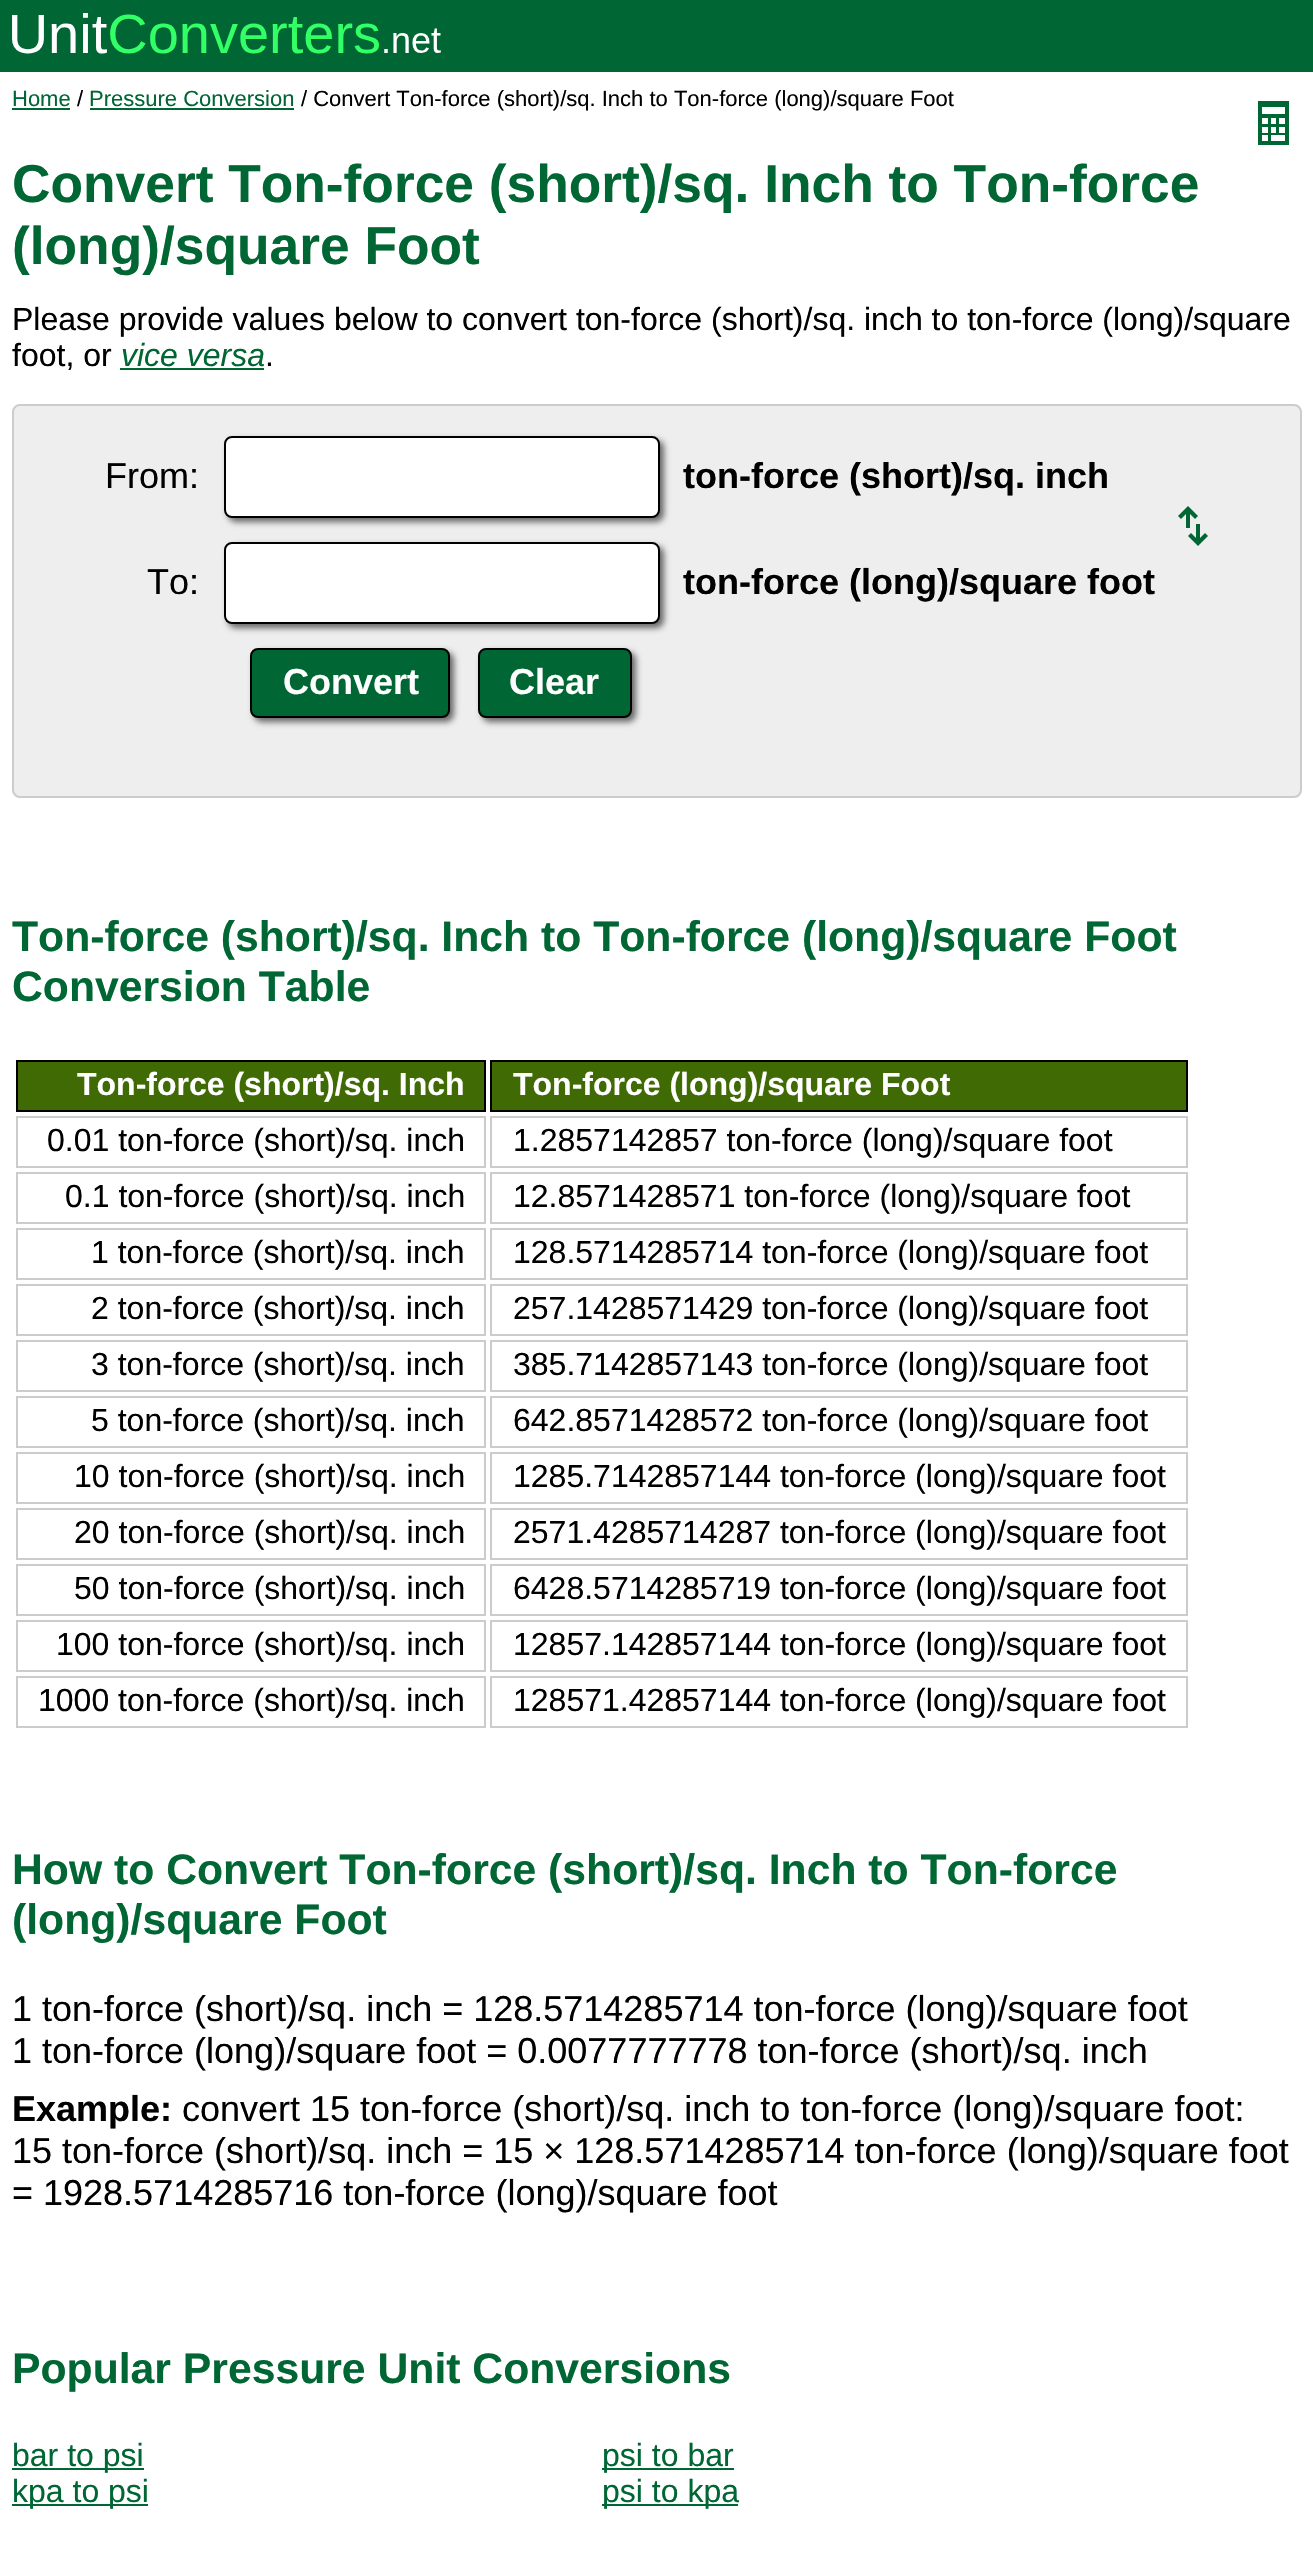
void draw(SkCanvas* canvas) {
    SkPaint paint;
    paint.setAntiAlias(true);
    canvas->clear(0xFFFFFFFF);
    paint.setColor(0xFF006633);
    canvas->drawRect(SkRect::MakeXYWH(0, 0, 1313, 72), paint);
    canvas->drawImageRect(SkImages::DeferredFromEncodedData(SkData::MakeFromFileName("img1.png")), SkRect::MakeXYWH(12, 13, 429, 41), SkSamplingOptions());
    SkFont font1(fontMgr->matchFamilyStyle("Liberation Sans", SkFontStyle::Normal()), 22);
    font1.setSubpixel(true);
    canvas->drawString("Home", 12, 106, font1, paint);
    canvas->drawRect(SkRect::MakeXYWH(12, 108, 58, 2), paint);
    paint.setColor(0xFF000000);
    canvas->drawString("/", 77, 106, font1, paint);
    paint.setColor(0xFF006633);
    canvas->drawString("Pressure Conversion", 89, 106, font1, paint);
    canvas->drawRect(SkRect::MakeXYWH(90, 108, 204, 2), paint);
    paint.setColor(0xFF000000);
    canvas->drawString("/ Convert Ton-force (short)/sq. Inch to Ton-force (long)/square Foot", 301, 106, font1, paint);
    canvas->drawImageRect(SkImages::DeferredFromEncodedData(SkData::MakeFromFileName("img2.png")), SkRect::MakeXYWH(1258, 101, 31, 44), SkSamplingOptions());
    SkFont font2(fontMgr->matchFamilyStyle("Liberation Sans", SkFontStyle::Bold()), 53.3f);
    font2.setSubpixel(true);
    paint.setColor(0xFF006633);
    canvas->drawString("Convert Ton-force (short)/sq. Inch to Ton-force", 12, 202, font2, paint);
    canvas->drawString("(long)/square Foot", 12, 264, font2, paint);
    SkFont font3(fontMgr->matchFamilyStyle("Liberation Sans", SkFontStyle::Normal()), 32);
    font3.setSubpixel(true);
    paint.setColor(0xFF000000);
    canvas->drawString("Please provide values below to convert ton-force (short)/sq. inch to ton-force (long)/square", 12, 330, font3, paint);
    canvas->drawString("foot, or", 12, 366, font3, paint);
    SkFont font4(fontMgr->matchFamilyStyle("Liberation Sans", SkFontStyle::Italic()), 32);
    font4.setSubpixel(true);
    paint.setColor(0xFF006633);
    canvas->drawString("vice versa", 121, 366, font4, paint);
    canvas->drawRect(SkRect::MakeXYWH(120, 368, 144, 2), paint);
    paint.setColor(0xFF000000);
    canvas->drawString(".", 265, 366, font3, paint);
    paint.setColor(0xFFEEEEEE);
    canvas->drawRoundRect(SkRect::MakeXYWH(13, 405, 1288, 392), 7, 7, paint);
    paint.setStyle(SkPaint::kStroke_Style);
    paint.setStrokeWidth(2);
    paint.setColor(0xFFCCCCCC);
    canvas->drawRoundRect(SkRect::MakeXYWH(13, 405, 1288, 392), 7, 7, paint);
    SkFont font5(fontMgr->matchFamilyStyle("Liberation Sans", SkFontStyle::Normal()), 36);
    font5.setSubpixel(true);
    paint.setStyle(SkPaint::kFill_Style);
    paint.setColor(0xFF000000);
    canvas->drawString("From:", 105, 488, font5, paint);
    paint.setColor(0xFF666666);
    paint.setMaskFilter(SkMaskFilter::MakeBlur(kNormal_SkBlurStyle, 3));
    canvas->drawRoundRect(SkRect::MakeXYWH(228, 440, 436, 82), 8, 8, paint);
    paint.setMaskFilter(nullptr);
    paint.setColor(0xFFFFFFFF);
    canvas->drawRoundRect(SkRect::MakeXYWH(225, 437, 434, 80), 7, 7, paint);
    paint.setStyle(SkPaint::kStroke_Style);
    paint.setColor(0xFF000000);
    canvas->drawRoundRect(SkRect::MakeXYWH(225, 437, 434, 80), 7, 7, paint);
    SkFont font6(fontMgr->matchFamilyStyle("Liberation Sans", SkFontStyle::Bold()), 36);
    font6.setSubpixel(true);
    paint.setStyle(SkPaint::kFill_Style);
    canvas->drawString("ton-force (short)/sq. inch", 683, 488, font6, paint);
    canvas->drawImageRect(SkImages::DeferredFromEncodedData(SkData::MakeFromFileName("img3.png")), SkRect::MakeXYWH(1178, 506, 30, 40), SkSamplingOptions());
    canvas->drawString("To:", 147, 594, font5, paint);
    paint.setColor(0xFF666666);
    paint.setMaskFilter(SkMaskFilter::MakeBlur(kNormal_SkBlurStyle, 3));
    canvas->drawRoundRect(SkRect::MakeXYWH(228, 546, 436, 82), 8, 8, paint);
    paint.setMaskFilter(nullptr);
    paint.setColor(0xFFFFFFFF);
    canvas->drawRoundRect(SkRect::MakeXYWH(225, 543, 434, 80), 7, 7, paint);
    paint.setStyle(SkPaint::kStroke_Style);
    paint.setColor(0xFF000000);
    canvas->drawRoundRect(SkRect::MakeXYWH(225, 543, 434, 80), 7, 7, paint);
    paint.setStyle(SkPaint::kFill_Style);
    canvas->drawString("ton-force (long)/square foot", 683, 594, font6, paint);
    paint.setColor(0xFF666666);
    paint.setMaskFilter(SkMaskFilter::MakeBlur(kNormal_SkBlurStyle, 3));
    canvas->drawRoundRect(SkRect::MakeXYWH(254, 652, 200, 70), 8, 8, paint);
    paint.setMaskFilter(nullptr);
    paint.setColor(0xFF006633);
    canvas->drawRoundRect(SkRect::MakeXYWH(251, 649, 198, 68), 7, 7, paint);
    paint.setStyle(SkPaint::kStroke_Style);
    paint.setColor(0xFF000000);
    canvas->drawRoundRect(SkRect::MakeXYWH(251, 649, 198, 68), 7, 7, paint);
    paint.setStyle(SkPaint::kFill_Style);
    paint.setColor(0xFFFFFFFF);
    canvas->drawString("Convert", 283, 694, font6, paint);
    paint.setColor(0xFF666666);
    paint.setMaskFilter(SkMaskFilter::MakeBlur(kNormal_SkBlurStyle, 3));
    canvas->drawRoundRect(SkRect::MakeXYWH(482, 652, 154, 70), 8, 8, paint);
    paint.setMaskFilter(nullptr);
    paint.setColor(0xFF006633);
    canvas->drawRoundRect(SkRect::MakeXYWH(479, 649, 152, 68), 7, 7, paint);
    paint.setStyle(SkPaint::kStroke_Style);
    paint.setColor(0xFF000000);
    canvas->drawRoundRect(SkRect::MakeXYWH(479, 649, 152, 68), 7, 7, paint);
    paint.setStyle(SkPaint::kFill_Style);
    paint.setColor(0xFFFFFFFF);
    canvas->drawString("Clear", 509, 694, font6, paint);
    SkFont font7(fontMgr->matchFamilyStyle("Liberation Sans", SkFontStyle::Bold()), 42.7f);
    font7.setSubpixel(true);
    paint.setColor(0xFF006633);
    canvas->drawString("Ton-force (short)/sq. Inch to Ton-force (long)/square Foot", 12, 951, font7, paint);
    canvas->drawString("Conversion Table", 12, 1001, font7, paint);
    paint.setColor(0xFF406B04);
    canvas->drawRect(SkRect::MakeXYWH(17, 1061, 468, 50), paint);
    paint.setStyle(SkPaint::kStroke_Style);
    paint.setColor(0xFF000000);
    canvas->drawRect(SkRect::MakeXYWH(17, 1061, 468, 50), paint);
    SkFont font8(fontMgr->matchFamilyStyle("Liberation Sans", SkFontStyle::Bold()), 32);
    font8.setSubpixel(true);
    paint.setStyle(SkPaint::kFill_Style);
    paint.setColor(0xFFFFFFFF);
    canvas->drawString("Ton-force (short)/sq. Inch", 77, 1095, font8, paint);
    paint.setColor(0xFF406B04);
    canvas->drawRect(SkRect::MakeXYWH(491, 1061, 696, 50), paint);
    paint.setStyle(SkPaint::kStroke_Style);
    paint.setColor(0xFF000000);
    canvas->drawRect(SkRect::MakeXYWH(491, 1061, 696, 50), paint);
    paint.setStyle(SkPaint::kFill_Style);
    paint.setColor(0xFFFFFFFF);
    canvas->drawString("Ton-force (long)/square Foot", 513, 1095, font8, paint);
    paint.setStyle(SkPaint::kStroke_Style);
    paint.setColor(0xFFCCCCCC);
    canvas->drawRect(SkRect::MakeXYWH(17, 1117, 468, 50), paint);
    paint.setStyle(SkPaint::kFill_Style);
    paint.setColor(0xFF000000);
    canvas->drawString("0.01 ton-force (short)/sq. inch", 47, 1151, font3, paint);
    paint.setStyle(SkPaint::kStroke_Style);
    paint.setColor(0xFFCCCCCC);
    canvas->drawRect(SkRect::MakeXYWH(491, 1117, 696, 50), paint);
    paint.setStyle(SkPaint::kFill_Style);
    paint.setColor(0xFF000000);
    canvas->drawString("1.2857142857 ton-force (long)/square foot", 513, 1151, font3, paint);
    paint.setStyle(SkPaint::kStroke_Style);
    paint.setColor(0xFFCCCCCC);
    canvas->drawRect(SkRect::MakeXYWH(17, 1173, 468, 50), paint);
    paint.setStyle(SkPaint::kFill_Style);
    paint.setColor(0xFF000000);
    canvas->drawString("0.1 ton-force (short)/sq. inch", 65, 1207, font3, paint);
    paint.setStyle(SkPaint::kStroke_Style);
    paint.setColor(0xFFCCCCCC);
    canvas->drawRect(SkRect::MakeXYWH(491, 1173, 696, 50), paint);
    paint.setStyle(SkPaint::kFill_Style);
    paint.setColor(0xFF000000);
    canvas->drawString("12.8571428571 ton-force (long)/square foot", 513, 1207, font3, paint);
    paint.setStyle(SkPaint::kStroke_Style);
    paint.setColor(0xFFCCCCCC);
    canvas->drawRect(SkRect::MakeXYWH(17, 1229, 468, 50), paint);
    paint.setStyle(SkPaint::kFill_Style);
    paint.setColor(0xFF000000);
    canvas->drawString("1 ton-force (short)/sq. inch", 91, 1263, font3, paint);
    paint.setStyle(SkPaint::kStroke_Style);
    paint.setColor(0xFFCCCCCC);
    canvas->drawRect(SkRect::MakeXYWH(491, 1229, 696, 50), paint);
    paint.setStyle(SkPaint::kFill_Style);
    paint.setColor(0xFF000000);
    canvas->drawString("128.5714285714 ton-force (long)/square foot", 513, 1263, font3, paint);
    paint.setStyle(SkPaint::kStroke_Style);
    paint.setColor(0xFFCCCCCC);
    canvas->drawRect(SkRect::MakeXYWH(17, 1285, 468, 50), paint);
    paint.setStyle(SkPaint::kFill_Style);
    paint.setColor(0xFF000000);
    canvas->drawString("2 ton-force (short)/sq. inch", 91, 1319, font3, paint);
    paint.setStyle(SkPaint::kStroke_Style);
    paint.setColor(0xFFCCCCCC);
    canvas->drawRect(SkRect::MakeXYWH(491, 1285, 696, 50), paint);
    paint.setStyle(SkPaint::kFill_Style);
    paint.setColor(0xFF000000);
    canvas->drawString("257.1428571429 ton-force (long)/square foot", 513, 1319, font3, paint);
    paint.setStyle(SkPaint::kStroke_Style);
    paint.setColor(0xFFCCCCCC);
    canvas->drawRect(SkRect::MakeXYWH(17, 1341, 468, 50), paint);
    paint.setStyle(SkPaint::kFill_Style);
    paint.setColor(0xFF000000);
    canvas->drawString("3 ton-force (short)/sq. inch", 91, 1375, font3, paint);
    paint.setStyle(SkPaint::kStroke_Style);
    paint.setColor(0xFFCCCCCC);
    canvas->drawRect(SkRect::MakeXYWH(491, 1341, 696, 50), paint);
    paint.setStyle(SkPaint::kFill_Style);
    paint.setColor(0xFF000000);
    canvas->drawString("385.7142857143 ton-force (long)/square foot", 513, 1375, font3, paint);
    paint.setStyle(SkPaint::kStroke_Style);
    paint.setColor(0xFFCCCCCC);
    canvas->drawRect(SkRect::MakeXYWH(17, 1397, 468, 50), paint);
    paint.setStyle(SkPaint::kFill_Style);
    paint.setColor(0xFF000000);
    canvas->drawString("5 ton-force (short)/sq. inch", 91, 1431, font3, paint);
    paint.setStyle(SkPaint::kStroke_Style);
    paint.setColor(0xFFCCCCCC);
    canvas->drawRect(SkRect::MakeXYWH(491, 1397, 696, 50), paint);
    paint.setStyle(SkPaint::kFill_Style);
    paint.setColor(0xFF000000);
    canvas->drawString("642.8571428572 ton-force (long)/square foot", 513, 1431, font3, paint);
    paint.setStyle(SkPaint::kStroke_Style);
    paint.setColor(0xFFCCCCCC);
    canvas->drawRect(SkRect::MakeXYWH(17, 1453, 468, 50), paint);
    paint.setStyle(SkPaint::kFill_Style);
    paint.setColor(0xFF000000);
    canvas->drawString("10 ton-force (short)/sq. inch", 74, 1487, font3, paint);
    paint.setStyle(SkPaint::kStroke_Style);
    paint.setColor(0xFFCCCCCC);
    canvas->drawRect(SkRect::MakeXYWH(491, 1453, 696, 50), paint);
    paint.setStyle(SkPaint::kFill_Style);
    paint.setColor(0xFF000000);
    canvas->drawString("1285.7142857144 ton-force (long)/square foot", 513, 1487, font3, paint);
    paint.setStyle(SkPaint::kStroke_Style);
    paint.setColor(0xFFCCCCCC);
    canvas->drawRect(SkRect::MakeXYWH(17, 1509, 468, 50), paint);
    paint.setStyle(SkPaint::kFill_Style);
    paint.setColor(0xFF000000);
    canvas->drawString("20 ton-force (short)/sq. inch", 74, 1543, font3, paint);
    paint.setStyle(SkPaint::kStroke_Style);
    paint.setColor(0xFFCCCCCC);
    canvas->drawRect(SkRect::MakeXYWH(491, 1509, 696, 50), paint);
    paint.setStyle(SkPaint::kFill_Style);
    paint.setColor(0xFF000000);
    canvas->drawString("2571.4285714287 ton-force (long)/square foot", 513, 1543, font3, paint);
    paint.setStyle(SkPaint::kStroke_Style);
    paint.setColor(0xFFCCCCCC);
    canvas->drawRect(SkRect::MakeXYWH(17, 1565, 468, 50), paint);
    paint.setStyle(SkPaint::kFill_Style);
    paint.setColor(0xFF000000);
    canvas->drawString("50 ton-force (short)/sq. inch", 74, 1599, font3, paint);
    paint.setStyle(SkPaint::kStroke_Style);
    paint.setColor(0xFFCCCCCC);
    canvas->drawRect(SkRect::MakeXYWH(491, 1565, 696, 50), paint);
    paint.setStyle(SkPaint::kFill_Style);
    paint.setColor(0xFF000000);
    canvas->drawString("6428.5714285719 ton-force (long)/square foot", 513, 1599, font3, paint);
    paint.setStyle(SkPaint::kStroke_Style);
    paint.setColor(0xFFCCCCCC);
    canvas->drawRect(SkRect::MakeXYWH(17, 1621, 468, 50), paint);
    paint.setStyle(SkPaint::kFill_Style);
    paint.setColor(0xFF000000);
    canvas->drawString("100 ton-force (short)/sq. inch", 56, 1655, font3, paint);
    paint.setStyle(SkPaint::kStroke_Style);
    paint.setColor(0xFFCCCCCC);
    canvas->drawRect(SkRect::MakeXYWH(491, 1621, 696, 50), paint);
    paint.setStyle(SkPaint::kFill_Style);
    paint.setColor(0xFF000000);
    canvas->drawString("12857.142857144 ton-force (long)/square foot", 513, 1655, font3, paint);
    paint.setStyle(SkPaint::kStroke_Style);
    paint.setColor(0xFFCCCCCC);
    canvas->drawRect(SkRect::MakeXYWH(17, 1677, 468, 50), paint);
    paint.setStyle(SkPaint::kFill_Style);
    paint.setColor(0xFF000000);
    canvas->drawString("1000 ton-force (short)/sq. inch", 38, 1711, font3, paint);
    paint.setStyle(SkPaint::kStroke_Style);
    paint.setColor(0xFFCCCCCC);
    canvas->drawRect(SkRect::MakeXYWH(491, 1677, 696, 50), paint);
    paint.setStyle(SkPaint::kFill_Style);
    paint.setColor(0xFF000000);
    canvas->drawString("128571.42857144 ton-force (long)/square foot", 513, 1711, font3, paint);
    paint.setColor(0xFF006633);
    canvas->drawString("How to Convert Ton-force (short)/sq. Inch to Ton-force", 12, 1884, font7, paint);
    canvas->drawString("(long)/square Foot", 12, 1934, font7, paint);
    paint.setColor(0xFF000000);
    canvas->drawString("1 ton-force (short)/sq. inch = 128.5714285714 ton-force (long)/square foot", 12, 2021, font5, paint);
    canvas->drawString("1 ton-force (long)/square foot = 0.0077777778 ton-force (short)/sq. inch", 12, 2063, font5, paint);
    canvas->drawString("Example:", 12, 2121, font6, paint);
    canvas->drawString("convert 15 ton-force (short)/sq. inch to ton-force (long)/square foot:", 182, 2121, font5, paint);
    canvas->drawString("15 ton-force (short)/sq. inch = 15 × 128.5714285714 ton-force (long)/square foot", 12, 2163, font5, paint);
    canvas->drawString("= 1928.5714285716 ton-force (long)/square foot", 12, 2205, font5, paint);
    paint.setColor(0xFF006633);
    canvas->drawString("Popular Pressure Unit Conversions", 12, 2383, font7, paint);
    canvas->drawRect(SkRect::MakeXYWH(12, 2468, 132, 2), paint);
    canvas->drawString("bar to psi", 12, 2466, font3, paint);
    canvas->drawRect(SkRect::MakeXYWH(602, 2468, 132, 2), paint);
    canvas->drawString("psi to bar", 602, 2466, font3, paint);
    canvas->drawRect(SkRect::MakeXYWH(12, 2504, 136, 2), paint);
    canvas->drawString("kpa to psi", 12, 2502, font3, paint);
    canvas->drawRect(SkRect::MakeXYWH(602, 2504, 136, 2), paint);
    canvas->drawString("psi to kpa", 602, 2502, font3, paint);
}
